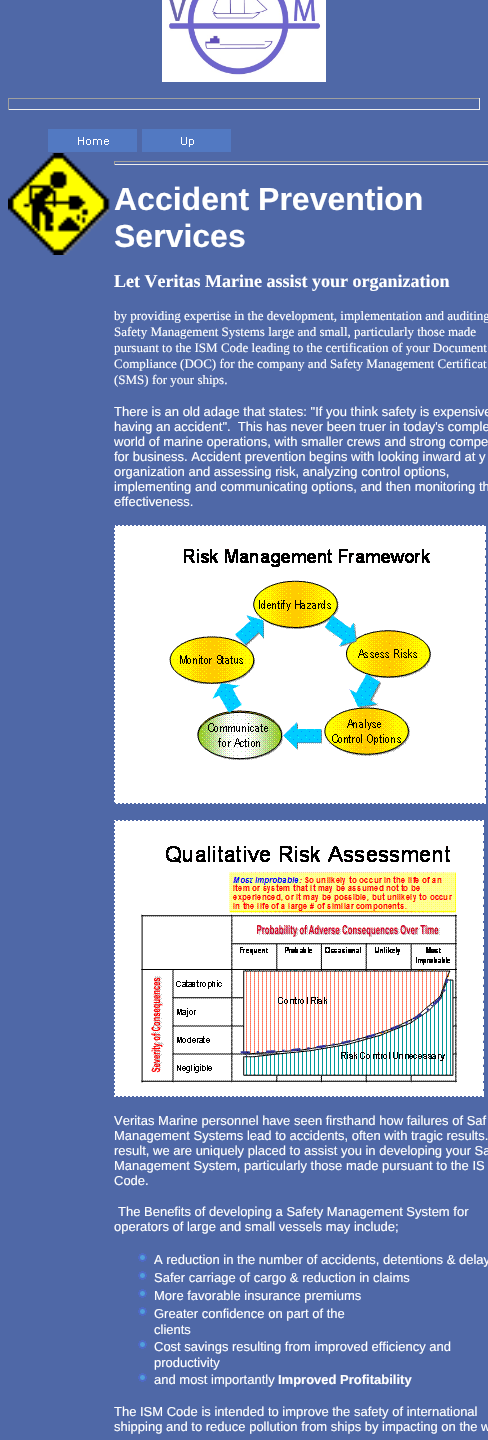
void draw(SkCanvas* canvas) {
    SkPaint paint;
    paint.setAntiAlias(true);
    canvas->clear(0xFF4F68A7);
    canvas->drawImageRect(SkImages::DeferredFromEncodedData(SkData::MakeFromFileName("img1.png")), SkRect::MakeXYWH(162, 0, 164, 82), SkSamplingOptions());
    paint.setColor(0xFF9F9F9F);
    canvas->drawRect(SkRect::MakeXYWH(8, 98, 472, 1), paint);
    paint.setColor(0xFFEEEEEE);
    canvas->drawRect(SkRect::MakeXYWH(479, 98, 1, 12), paint);
    canvas->drawRect(SkRect::MakeXYWH(8, 109, 472, 1), paint);
    paint.setColor(0xFF9F9F9F);
    canvas->drawRect(SkRect::MakeXYWH(8, 98, 1, 12), paint);
    canvas->drawImageRect(SkImages::DeferredFromEncodedData(SkData::MakeFromFileName("img2.png")), SkRect::MakeXYWH(48, 129, 89, 23), SkSamplingOptions());
    canvas->drawImageRect(SkImages::DeferredFromEncodedData(SkData::MakeFromFileName("img3.png")), SkRect::MakeXYWH(142, 129, 89, 23), SkSamplingOptions());
    canvas->drawImageRect(SkImages::DeferredFromEncodedData(SkData::MakeFromFileName("img4.png")), SkRect::MakeXYWH(8, 153, 102, 102), SkSamplingOptions());
    canvas->drawRect(SkRect::MakeXYWH(114, 161, 374, 1), paint);
    paint.setColor(0xFFEEEEEE);
    canvas->drawRect(SkRect::MakeXYWH(114, 164, 374, 1), paint);
    paint.setColor(0xFF9F9F9F);
    canvas->drawRect(SkRect::MakeXYWH(114, 161, 1, 4), paint);
    SkFont font1(fontMgr->matchFamilyStyle("Liberation Sans", SkFontStyle::Bold()), 32);
    font1.setSubpixel(true);
    paint.setColor(0xFFFFFFFF);
    canvas->drawString("Accident Prevention", 114, 210, font1, paint);
    canvas->drawString("Services", 114, 247, font1, paint);
    SkFont font2(fontMgr->matchFamilyStyle("Liberation Serif", SkFontStyle::Bold()), 18);
    font2.setSubpixel(true);
    canvas->drawString("Let Veritas Marine assist your organization", 114, 287, font2, paint);
    SkFont font3(fontMgr->matchFamilyStyle("Liberation Serif", SkFontStyle::Normal()), 13);
    font3.setSubpixel(true);
    canvas->drawString("by providing expertise in the development, implementation and auditing", 114, 320, font3, paint);
    canvas->drawString("Safety Management Systems large and small, particularly those made", 114, 336, font3, paint);
    canvas->drawString("pursuant to the ISM Code leading to the certification of your Document", 114, 352, font3, paint);
    canvas->drawString("Compliance (DOC) for the company and Safety Management Certificat", 114, 368, font3, paint);
    canvas->drawString("(SMS) for your ships.", 114, 384, font3, paint);
    SkFont font4(fontMgr->matchFamilyStyle("Liberation Sans", SkFontStyle::Normal()), 13);
    font4.setSubpixel(true);
    canvas->drawString("There is an old adage that states: \"If you think safety is expensive", 114, 416, font4, paint);
    canvas->drawString("having an accident\".  This has never been truer in today's comple", 114, 431, font4, paint);
    canvas->drawString("world of marine operations, with smaller crews and strong compe", 114, 446, font4, paint);
    canvas->drawString("for business. Accident prevention begins with looking inward at y", 114, 461, font4, paint);
    canvas->drawString("organization and assessing risk, analyzing control options,", 114, 476, font4, paint);
    canvas->drawString("implementing and communicating options, and then monitoring th", 114, 491, font4, paint);
    canvas->drawString("effectiveness.", 114, 506, font4, paint);
    canvas->drawImageRect(SkImages::DeferredFromEncodedData(SkData::MakeFromFileName("img5.png")), SkRect::MakeXYWH(114, 525, 372, 279), SkSamplingOptions());
    canvas->drawImageRect(SkImages::DeferredFromEncodedData(SkData::MakeFromFileName("img6.png")), SkRect::MakeXYWH(114, 820, 370, 277), SkSamplingOptions());
    canvas->drawString("Veritas Marine personnel have seen firsthand how failures of Saf", 114, 1125, font4, paint);
    canvas->drawString("Management Systems lead to accidents, often with tragic results.", 114, 1140, font4, paint);
    canvas->drawString("result, we are uniquely placed to assist you in developing your Sa", 114, 1155, font4, paint);
    canvas->drawString("Management System, particularly those made pursuant to the IS", 114, 1170, font4, paint);
    canvas->drawString("Code.", 114, 1185, font4, paint);
    canvas->drawString("The Benefits of developing a Safety Management System for", 118, 1216, font4, paint);
    canvas->drawString("operators of large and small vessels may include;", 114, 1231, font4, paint);
    canvas->drawImageRect(SkImages::DeferredFromEncodedData(SkData::MakeFromFileName("img7.png")), SkRect::MakeXYWH(138, 1253, 9, 9), SkSamplingOptions());
    canvas->drawString("A reduction in the number of accidents, detentions & delay", 154, 1264, font4, paint);
    canvas->drawImageRect(SkImages::DeferredFromEncodedData(SkData::MakeFromFileName("img7.png")), SkRect::MakeXYWH(138, 1271, 9, 9), SkSamplingOptions());
    canvas->drawString("Safer carriage of cargo & reduction in claims", 154, 1282, font4, paint);
    canvas->drawImageRect(SkImages::DeferredFromEncodedData(SkData::MakeFromFileName("img7.png")), SkRect::MakeXYWH(138, 1289, 9, 9), SkSamplingOptions());
    canvas->drawString("More favorable insurance premiums", 154, 1300, font4, paint);
    canvas->drawImageRect(SkImages::DeferredFromEncodedData(SkData::MakeFromFileName("img7.png")), SkRect::MakeXYWH(138, 1307, 9, 9), SkSamplingOptions());
    canvas->drawString("Greater confidence on part of the", 154, 1318, font4, paint);
    canvas->drawString("clients", 154, 1334, font4, paint);
    canvas->drawImageRect(SkImages::DeferredFromEncodedData(SkData::MakeFromFileName("img7.png")), SkRect::MakeXYWH(138, 1340, 9, 9), SkSamplingOptions());
    canvas->drawString("Cost savings resulting from improved efficiency and", 154, 1351, font4, paint);
    canvas->drawString("productivity", 154, 1367, font4, paint);
    canvas->drawImageRect(SkImages::DeferredFromEncodedData(SkData::MakeFromFileName("img7.png")), SkRect::MakeXYWH(138, 1373, 9, 9), SkSamplingOptions());
    canvas->drawString("and most importantly", 154, 1384, font4, paint);
    SkFont font5(fontMgr->matchFamilyStyle("Liberation Sans", SkFontStyle::Bold()), 13);
    font5.setSubpixel(true);
    canvas->drawString("Improved Profitability", 278, 1384, font5, paint);
    canvas->drawString("The ISM Code is intended to improve the safety of international", 114, 1416, font4, paint);
    canvas->drawString("shipping and to reduce pollution from ships by impacting on the w", 114, 1431, font4, paint);
}
